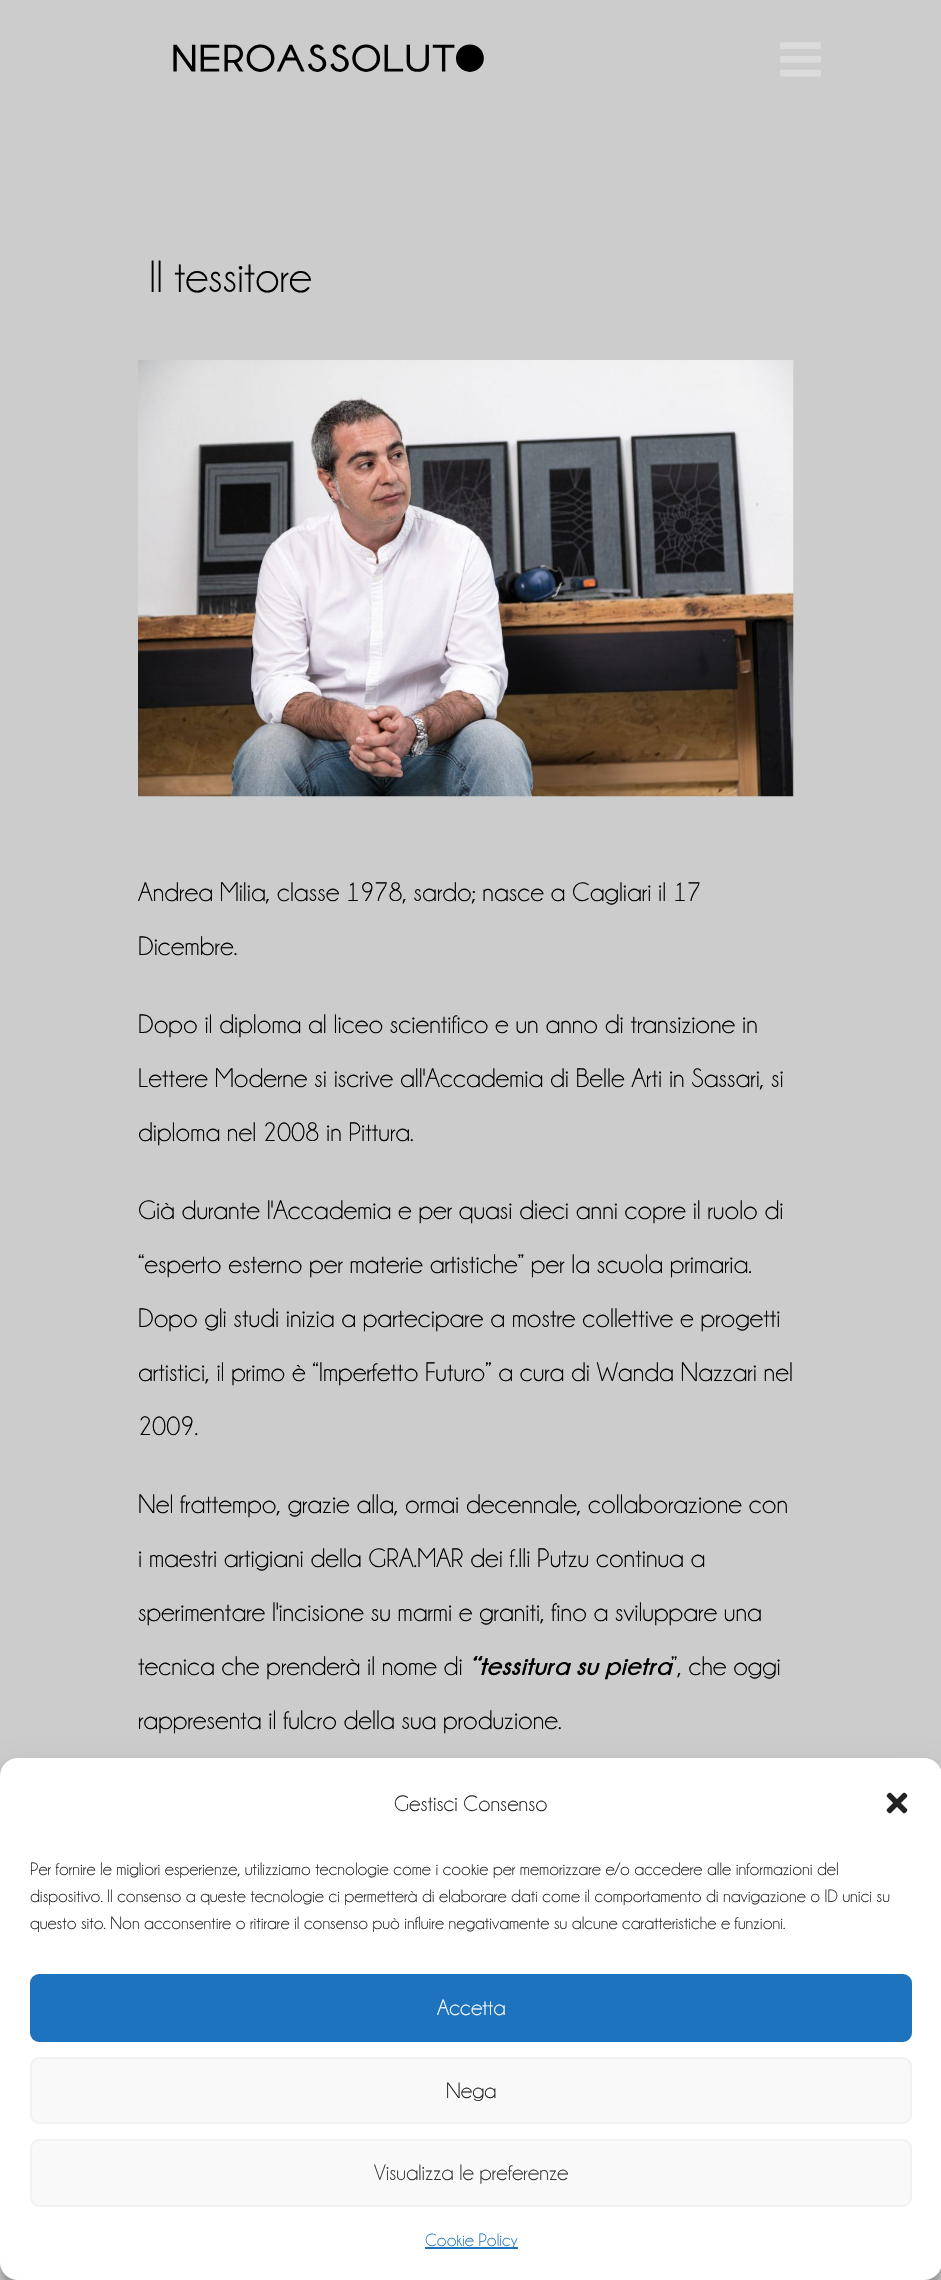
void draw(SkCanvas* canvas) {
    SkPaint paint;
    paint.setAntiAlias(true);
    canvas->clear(0xFFCCCCCC);
    canvas->drawImageRect(SkImages::DeferredFromEncodedData(SkData::MakeFromFileName("img1.png")), SkRect::MakeXYWH(173, 44, 311, 28), SkSamplingOptions());
    canvas->drawImageRect(SkImages::DeferredFromEncodedData(SkData::MakeFromFileName("img2.png")), SkRect::MakeXYWH(780, 42, 41, 35), SkSamplingOptions());
    SkFont font1(fontMgr->matchFamilyStyle("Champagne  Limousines", SkFontStyle::Normal()), 45.5f);
    font1.setSubpixel(true);
    paint.setColor(0xFF000000);
    canvas->drawString("Il tessitore", 149, 292, font1, paint);
    canvas->drawImageRect(SkImages::DeferredFromEncodedData(SkData::MakeFromFileName("img3.png")), SkRect::MakeXYWH(138, 360, 656, 437), SkSamplingOptions());
    SkFont font2(fontMgr->matchFamilyStyle("Champagne  Limousines", SkFontStyle::Normal()), 27);
    font2.setSubpixel(true);
    canvas->drawString("Andrea Milia, classe 1978, sardo; nasce a Cagliari il 17", 138, 901, font2, paint);
    canvas->drawString("Dicembre.", 138, 955, font2, paint);
    canvas->drawString("Dopo il diploma al liceo scientifico e un anno di transizione in", 138, 1033, font2, paint);
    canvas->drawString("Lettere Moderne si iscrive all'Accademia di Belle Arti in Sassari, si", 138, 1087, font2, paint);
    canvas->drawString("diploma nel 2008 in Pittura.", 138, 1141, font2, paint);
    canvas->drawString("Già durante l'Accademia e per quasi dieci anni copre il ruolo di", 138, 1219, font2, paint);
    canvas->drawString("“esperto esterno per materie artistiche” per la scuola primaria.", 138, 1273, font2, paint);
    canvas->drawString("Dopo gli studi inizia a partecipare a mostre collettive e progetti", 138, 1327, font2, paint);
    canvas->drawString("artistici, il primo è “Imperfetto Futuro” a cura di Wanda Nazzari nel", 138, 1381, font2, paint);
    canvas->drawString("2009.", 138, 1435, font2, paint);
    canvas->drawString("Nel frattempo, grazie alla, ormai decennale, collaborazione con", 138, 1513, font2, paint);
    canvas->drawString("i maestri artigiani della GRA.MAR dei f.lli Putzu continua a", 138, 1567, font2, paint);
    canvas->drawString("sperimentare l'incisione su marmi e graniti, fino a sviluppare una", 138, 1621, font2, paint);
    canvas->drawString("tecnica che prenderà il nome di", 138, 1675, font2, paint);
    SkFont font3(fontMgr->matchFamilyStyle("Champagne  Limousines", SkFontStyle::BoldItalic()), 27);
    font3.setSubpixel(true);
    canvas->drawString("“tessitura su pietra", 469, 1675, font3, paint);
    canvas->drawString("”, che oggi", 671, 1675, font2, paint);
    canvas->drawString("rappresenta il fulcro della sua produzione.", 138, 1729, font2, paint);
    paint.setColor(0xFFDBDBDB);
    canvas->drawRect(SkRect::MakeXYWH(0, 2262, 941, 18), paint);
    paint.setColor(0x3B000000);
    paint.setMaskFilter(SkMaskFilter::MakeBlur(kNormal_SkBlurStyle, 4.5f));
    canvas->drawRoundRect(SkRect::MakeXYWH(0, 1767, 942, 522), 18, 18, paint);
    paint.setMaskFilter(nullptr);
    paint.setColor(0x30000000);
    paint.setMaskFilter(SkMaskFilter::MakeBlur(kNormal_SkBlurStyle, 15));
    canvas->drawRoundRect(SkRect::MakeXYWH(0, 1773, 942, 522), 18, 18, paint);
    paint.setMaskFilter(nullptr);
    paint.setColor(0xFFFFFFFF);
    canvas->drawRoundRect(SkRect::MakeXYWH(0, 1758, 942, 522), 18, 18, paint);
    SkFont font4(fontMgr->matchFamilyStyle("Champagne  Limousines", SkFontStyle::Normal()), 22.5f);
    font4.setSubpixel(true);
    paint.setColor(0xFF222222);
    canvas->drawString("Gestisci Consenso", 394, 1811, font4, paint);
    canvas->drawImageRect(SkImages::DeferredFromEncodedData(SkData::MakeFromFileName("img4.png")), SkRect::MakeXYWH(886, 1792, 22, 22), SkSamplingOptions());
    SkFont font5(fontMgr->matchFamilyStyle("Champagne  Limousines", SkFontStyle::Normal()), 18);
    font5.setSubpixel(true);
    canvas->drawString("Per fornire le migliori esperienze, utilizziamo tecnologie come i cookie per memorizzare e/o accedere alle informazioni del", 30, 1875, font5, paint);
    canvas->drawString("dispositivo. Il consenso a queste tecnologie ci permetterà di elaborare dati come il comportamento di navigazione o ID unici su", 30, 1902, font5, paint);
    canvas->drawString("questo sito. Non acconsentire o ritirare il consenso può influire negativamente su alcune caratteristiche e funzioni.", 30, 1929, font5, paint);
    paint.setColor(0xFF1E73BE);
    canvas->drawRoundRect(SkRect::MakeXYWH(31, 1975, 880, 66), 8, 8, paint);
    paint.setStyle(SkPaint::kStroke_Style);
    paint.setStrokeWidth(2);
    canvas->drawRoundRect(SkRect::MakeXYWH(31, 1975, 880, 66), 8, 8, paint);
    paint.setStyle(SkPaint::kFill_Style);
    paint.setColor(0xFFFFFFFF);
    canvas->drawString("Accetta", 437, 2015, font4, paint);
    paint.setColor(0xFFF9F9F9);
    canvas->drawRoundRect(SkRect::MakeXYWH(31, 2058, 880, 65), 8, 8, paint);
    paint.setStyle(SkPaint::kStroke_Style);
    paint.setColor(0xFFF2F2F2);
    canvas->drawRoundRect(SkRect::MakeXYWH(31, 2058, 880, 65), 8, 8, paint);
    paint.setStyle(SkPaint::kFill_Style);
    paint.setColor(0xFF222222);
    canvas->drawString("Nega", 446, 2098, font4, paint);
    paint.setColor(0xFFF9F9F9);
    canvas->drawRoundRect(SkRect::MakeXYWH(31, 2140, 880, 66), 8, 8, paint);
    paint.setStyle(SkPaint::kStroke_Style);
    paint.setColor(0xFFF2F2F2);
    canvas->drawRoundRect(SkRect::MakeXYWH(31, 2140, 880, 66), 8, 8, paint);
    paint.setStyle(SkPaint::kFill_Style);
    paint.setColor(0xFF333333);
    canvas->drawString("Visualizza le preferenze", 374, 2180, font4, paint);
    paint.setColor(0xFF1E73BE);
    canvas->drawRect(SkRect::MakeXYWH(425, 2247, 93, 2), paint);
    canvas->drawString("Cookie Policy", 425, 2246, font5, paint);
}
